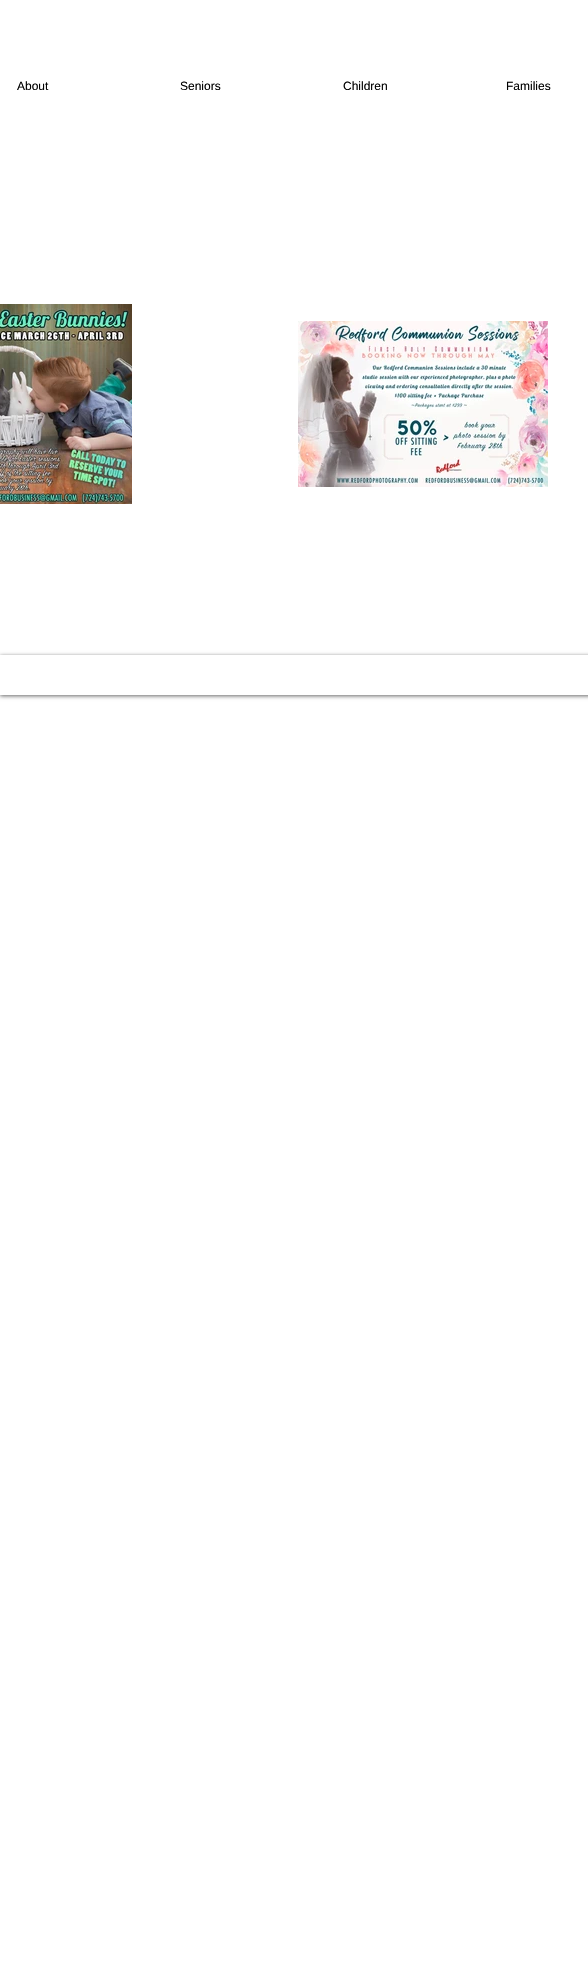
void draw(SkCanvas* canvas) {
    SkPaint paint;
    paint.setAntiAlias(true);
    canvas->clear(0xFFFFFFFF);
    SkFont font1(fontMgr->matchFamilyStyle("Liberation Sans", SkFontStyle::Normal()), 12);
    font1.setSubpixel(true);
    paint.setColor(0xFF000000);
    canvas->drawString("About", 17, 90, font1, paint);
    canvas->drawString("Seniors", 180, 90, font1, paint);
    canvas->drawString("Children", 343, 90, font1, paint);
    canvas->drawString("Families", 506, 90, font1, paint);
    canvas->drawImageRect(SkImages::DeferredFromEncodedData(SkData::MakeFromFileName("img1.png")), SkRect::MakeXYWH(0, 304, 132, 200), SkSamplingOptions());
    canvas->drawImageRect(SkImages::DeferredFromEncodedData(SkData::MakeFromFileName("img2.png")), SkRect::MakeXYWH(298, 321, 250, 166), SkSamplingOptions());
    canvas->save();
    canvas->clipPath(SkPathBuilder(SkPathFillType::kEvenOdd).moveTo(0, 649).lineTo(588, 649).lineTo(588, 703).lineTo(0, 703).close().moveTo(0, 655).lineTo(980, 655).lineTo(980, 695).lineTo(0, 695).close().detach(), true);
    paint.setColor(0x99000000);
    paint.setMaskFilter(SkMaskFilter::MakeBlur(kNormal_SkBlurStyle, 2));
    canvas->drawRect(SkRect::MakeXYWH(0, 656, 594, 40), paint);
    paint.setMaskFilter(nullptr);
    canvas->restore();
}
